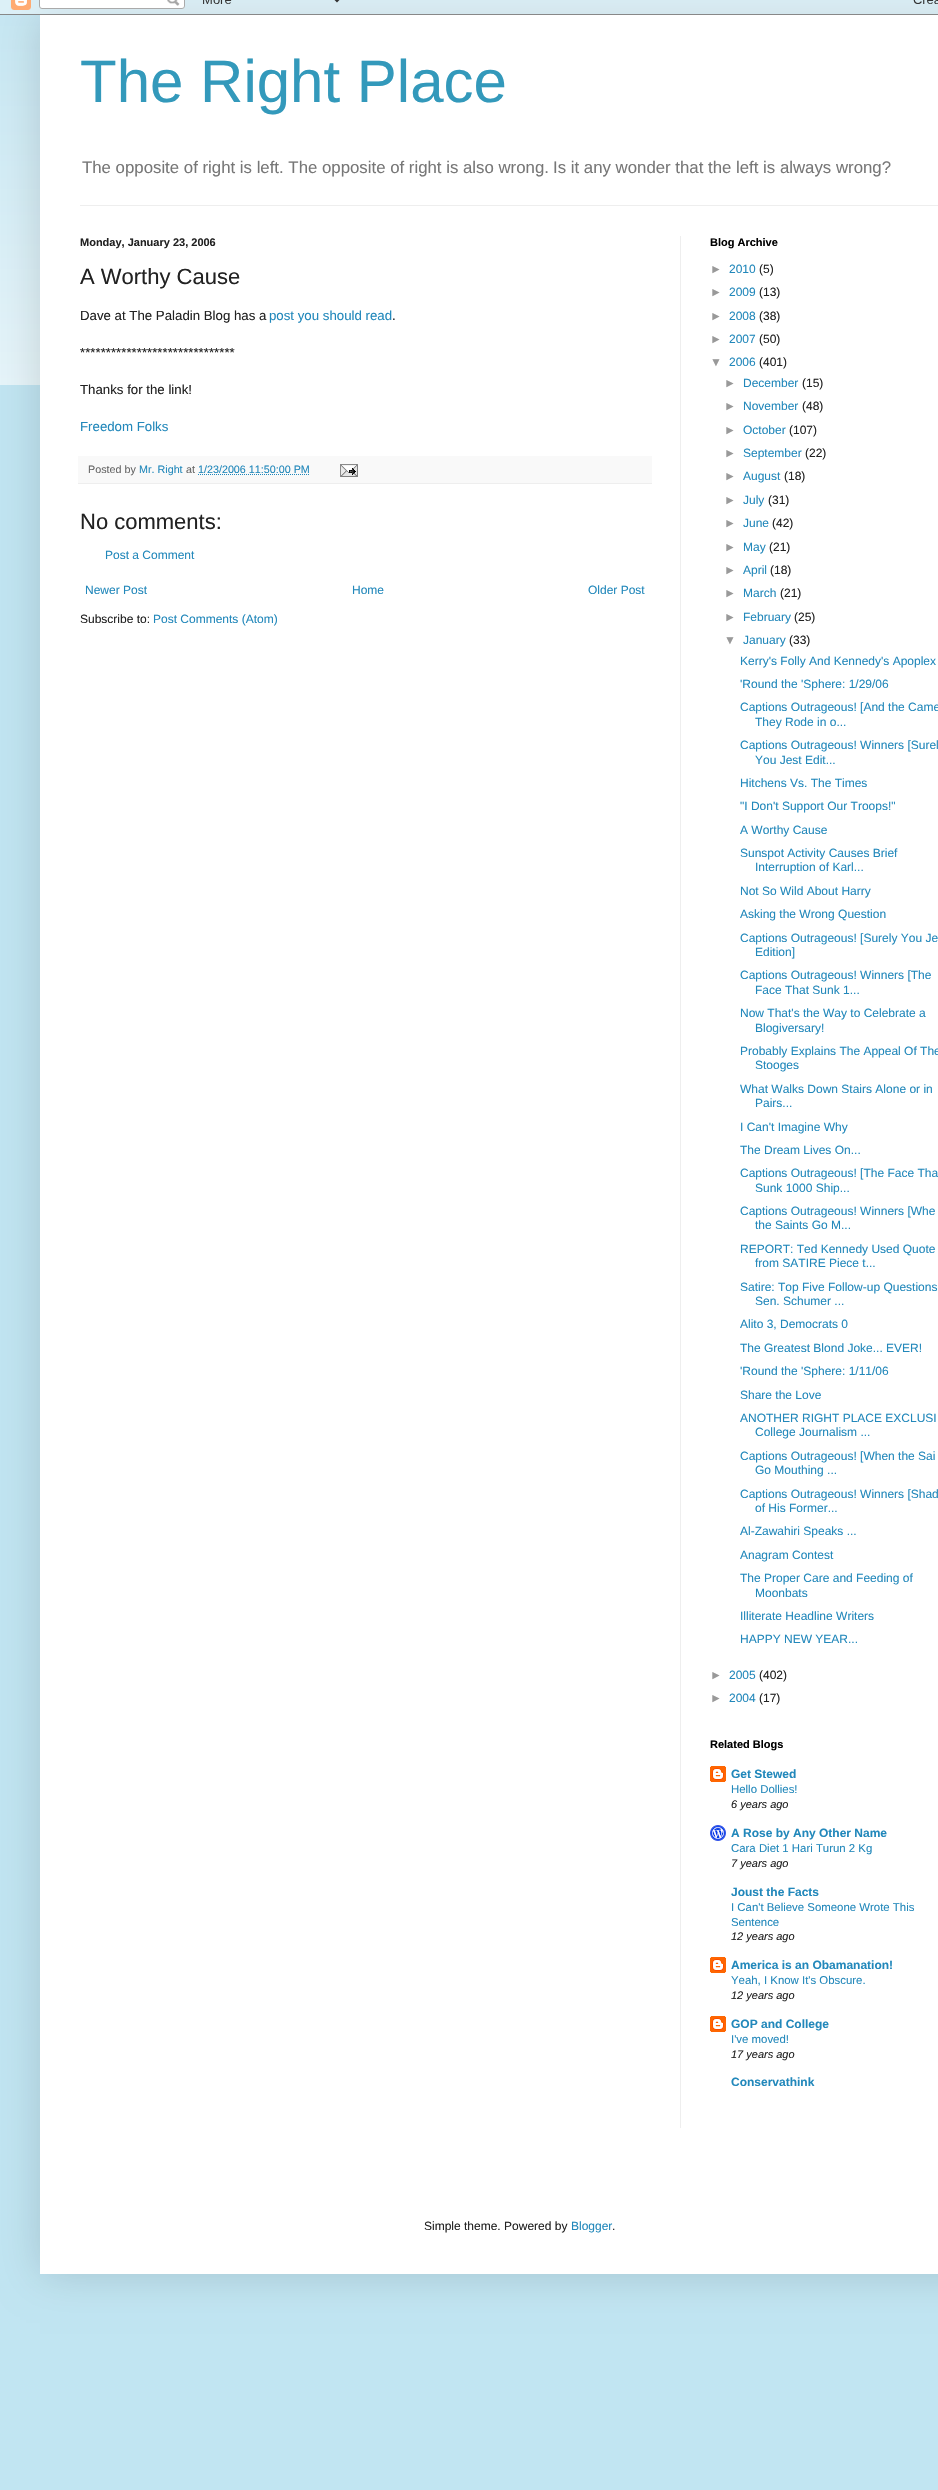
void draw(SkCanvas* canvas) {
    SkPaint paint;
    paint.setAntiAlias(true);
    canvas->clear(0xFFC1E5F2);
    canvas->drawImageRect(SkImages::DeferredFromEncodedData(SkData::MakeFromFileName("img1.png")), SkRect::MakeXYWH(0, 0, 938, 385), SkSamplingOptions());
    paint.setColor(0x26000000);
    paint.setMaskFilter(SkMaskFilter::MakeBlur(kNormal_SkBlurStyle, 20));
    canvas->drawRect(SkRect::MakeXYWH(40, 15, 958, 2259), paint);
    paint.setMaskFilter(nullptr);
    canvas->drawImageRect(SkImages::DeferredFromEncodedData(SkData::MakeFromFileName("img2.png")), SkRect::MakeXYWH(0, 0, 938, 15), SkSamplingOptions());
    paint.setColor(0xFFFFFFFF);
    canvas->drawRect(SkRect::MakeXYWH(40, 15, 898, 2259), paint);
    SkFont font1(fontMgr->matchFamilyStyle("Liberation Sans", SkFontStyle::Normal()), 60);
    font1.setSubpixel(true);
    paint.setColor(0xFF3399BB);
    canvas->drawString("The Right Place", 80, 102, font1, paint);
    SkFont font2(fontMgr->matchFamilyStyle("Liberation Sans", SkFontStyle::Normal()), 16.8f);
    font2.setSubpixel(true);
    paint.setColor(0xFF777777);
    canvas->drawString("The opposite of right is left. The opposite of right is also wrong.", 82, 173, font2, paint);
    canvas->drawString("Is it any wonder that the left is always wrong?", 553, 173, font2, paint);
    paint.setColor(0xFFEEEEEE);
    canvas->drawRect(SkRect::MakeXYWH(80, 205, 858, 1), paint);
    canvas->drawRect(SkRect::MakeXYWH(680, 236, 1, 1892), paint);
    SkFont font3(fontMgr->matchFamilyStyle("Liberation Sans", SkFontStyle::Bold()), 11);
    font3.setSubpixel(true);
    paint.setColor(0xFF222222);
    canvas->drawString("Monday, January 23, 2006", 80, 246, font3, paint);
    SkFont font4(fontMgr->matchFamilyStyle("Liberation Sans", SkFontStyle::Normal()), 22);
    font4.setSubpixel(true);
    canvas->drawString("A Worthy Cause", 80, 284, font4, paint);
    SkFont font5(fontMgr->matchFamilyStyle("Liberation Sans", SkFontStyle::Normal()), 13.25f);
    font5.setSubpixel(true);
    canvas->drawString("Dave at The Paladin Blog has a", 80, 320, font5, paint);
    paint.setColor(0xFF2288BB);
    canvas->drawString("post you should read", 269, 320, font5, paint);
    paint.setColor(0xFF222222);
    canvas->drawString(".", 392, 320, font5, paint);
    canvas->drawString("******************************", 80, 357, font5, paint);
    canvas->drawString("Thanks for the link!", 80, 394, font5, paint);
    paint.setColor(0xFF2288BB);
    canvas->drawString("Freedom Folks", 80, 431, font5, paint);
    paint.setColor(0xFFF9F9F9);
    canvas->drawRect(SkRect::MakeXYWH(78, 456, 574, 27), paint);
    paint.setColor(0xFFEEEEEE);
    canvas->drawRect(SkRect::MakeXYWH(78, 483, 574, 1), paint);
    SkFont font6(fontMgr->matchFamilyStyle("Liberation Sans", SkFontStyle::Normal()), 10.75f);
    font6.setSubpixel(true);
    paint.setColor(0xFF666666);
    canvas->drawString("Posted by", 88, 473, font6, paint);
    paint.setColor(0xFF2288BB);
    canvas->drawString("Mr. Right", 139, 473, font6, paint);
    paint.setColor(0xFF666666);
    canvas->drawString("at", 186, 473, font6, paint);
    paint.setColor(0xFF2288BB);
    canvas->drawString("1/23/2006 11:50:00 PM", 198, 473, font6, paint);
    paint.setStyle(SkPaint::kStroke_Style);
    paint.setStrokeWidth(1);
    paint.setPathEffect(SkDashPathEffect::Make({{1, 1}}, 0));
    canvas->drawPath(SkPathBuilder().moveTo(198, 474.5f).lineTo(310, 474.5f).detach(), paint);
    paint.setPathEffect(nullptr);
    canvas->drawImageRect(SkImages::DeferredFromEncodedData(SkData::MakeFromFileName("img3.png")), SkRect::MakeXYWH(340, 464, 18, 13), SkSamplingOptions());
    paint.setStyle(SkPaint::kFill_Style);
    paint.setColor(0xFF222222);
    canvas->drawString("No comments:", 80, 529, font4, paint);
    SkFont font7(fontMgr->matchFamilyStyle("Liberation Sans", SkFontStyle::Normal()), 12);
    font7.setSubpixel(true);
    paint.setColor(0xFF2288BB);
    canvas->drawString("Post a Comment", 105, 559, font7, paint);
    canvas->drawString("Newer Post", 85, 594, font7, paint);
    canvas->drawString("Home", 352, 594, font7, paint);
    canvas->drawString("Older Post", 588, 594, font7, paint);
    paint.setColor(0xFF222222);
    canvas->drawString("Subscribe to:", 80, 623, font7, paint);
    paint.setColor(0xFF2288BB);
    canvas->drawString("Post Comments (Atom)", 153, 623, font7, paint);
    paint.setColor(0xFF000000);
    canvas->drawString("Blog Archive", 710, 246, font3, paint);
    paint.setColor(0xFF999999);
    canvas->drawString("►", 710, 273, font7, paint);
    paint.setColor(0xFF2288BB);
    canvas->drawString("2010", 729, 273, font7, paint);
    paint.setColor(0xFF222222);
    canvas->drawString("(5)", 759, 273, font7, paint);
    paint.setColor(0xFF999999);
    canvas->drawString("►", 710, 296, font7, paint);
    paint.setColor(0xFF2288BB);
    canvas->drawString("2009", 729, 296, font7, paint);
    paint.setColor(0xFF222222);
    canvas->drawString("(13)", 759, 296, font7, paint);
    paint.setColor(0xFF999999);
    canvas->drawString("►", 710, 320, font7, paint);
    paint.setColor(0xFF2288BB);
    canvas->drawString("2008", 729, 320, font7, paint);
    paint.setColor(0xFF222222);
    canvas->drawString("(38)", 759, 320, font7, paint);
    paint.setColor(0xFF999999);
    canvas->drawString("►", 710, 343, font7, paint);
    paint.setColor(0xFF2288BB);
    canvas->drawString("2007", 729, 343, font7, paint);
    paint.setColor(0xFF222222);
    canvas->drawString("(50)", 759, 343, font7, paint);
    paint.setColor(0xFF999999);
    canvas->drawString("▼", 710, 366, font7, paint);
    paint.setColor(0xFF2288BB);
    canvas->drawString("2006", 729, 366, font7, paint);
    paint.setColor(0xFF222222);
    canvas->drawString("(401)", 759, 366, font7, paint);
    paint.setColor(0xFF999999);
    canvas->drawString("►", 724, 387, font7, paint);
    paint.setColor(0xFF2288BB);
    canvas->drawString("December", 743, 387, font7, paint);
    paint.setColor(0xFF222222);
    canvas->drawString("(15)", 802, 387, font7, paint);
    paint.setColor(0xFF999999);
    canvas->drawString("►", 724, 410, font7, paint);
    paint.setColor(0xFF2288BB);
    canvas->drawString("November", 743, 410, font7, paint);
    paint.setColor(0xFF222222);
    canvas->drawString("(48)", 802, 410, font7, paint);
    paint.setColor(0xFF999999);
    canvas->drawString("►", 724, 434, font7, paint);
    paint.setColor(0xFF2288BB);
    canvas->drawString("October", 743, 434, font7, paint);
    paint.setColor(0xFF222222);
    canvas->drawString("(107)", 789, 434, font7, paint);
    paint.setColor(0xFF999999);
    canvas->drawString("►", 724, 457, font7, paint);
    paint.setColor(0xFF2288BB);
    canvas->drawString("September", 743, 457, font7, paint);
    paint.setColor(0xFF222222);
    canvas->drawString("(22)", 805, 457, font7, paint);
    paint.setColor(0xFF999999);
    canvas->drawString("►", 724, 480, font7, paint);
    paint.setColor(0xFF2288BB);
    canvas->drawString("August", 743, 480, font7, paint);
    paint.setColor(0xFF222222);
    canvas->drawString("(18)", 784, 480, font7, paint);
    paint.setColor(0xFF999999);
    canvas->drawString("►", 724, 504, font7, paint);
    paint.setColor(0xFF2288BB);
    canvas->drawString("July", 743, 504, font7, paint);
    paint.setColor(0xFF222222);
    canvas->drawString("(31)", 768, 504, font7, paint);
    paint.setColor(0xFF999999);
    canvas->drawString("►", 724, 527, font7, paint);
    paint.setColor(0xFF2288BB);
    canvas->drawString("June", 743, 527, font7, paint);
    paint.setColor(0xFF222222);
    canvas->drawString("(42)", 772, 527, font7, paint);
    paint.setColor(0xFF999999);
    canvas->drawString("►", 724, 551, font7, paint);
    paint.setColor(0xFF2288BB);
    canvas->drawString("May", 743, 551, font7, paint);
    paint.setColor(0xFF222222);
    canvas->drawString("(21)", 769, 551, font7, paint);
    paint.setColor(0xFF999999);
    canvas->drawString("►", 724, 574, font7, paint);
    paint.setColor(0xFF2288BB);
    canvas->drawString("April", 743, 574, font7, paint);
    paint.setColor(0xFF222222);
    canvas->drawString("(18)", 770, 574, font7, paint);
    paint.setColor(0xFF999999);
    canvas->drawString("►", 724, 597, font7, paint);
    paint.setColor(0xFF2288BB);
    canvas->drawString("March", 743, 597, font7, paint);
    paint.setColor(0xFF222222);
    canvas->drawString("(21)", 780, 597, font7, paint);
    paint.setColor(0xFF999999);
    canvas->drawString("►", 724, 621, font7, paint);
    paint.setColor(0xFF2288BB);
    canvas->drawString("February", 743, 621, font7, paint);
    paint.setColor(0xFF222222);
    canvas->drawString("(25)", 794, 621, font7, paint);
    paint.setColor(0xFF999999);
    canvas->drawString("▼", 724, 644, font7, paint);
    paint.setColor(0xFF2288BB);
    canvas->drawString("January", 743, 644, font7, paint);
    paint.setColor(0xFF222222);
    canvas->drawString("(33)", 789, 644, font7, paint);
    paint.setColor(0xFF2288BB);
    canvas->drawString("Kerry's Folly And Kennedy's Apoplex", 740, 665, font7, paint);
    canvas->drawString("'Round the 'Sphere: 1/29/06", 740, 688, font7, paint);
    canvas->drawString("Captions Outrageous! [And the Came", 740, 711, font7, paint);
    canvas->drawString("They Rode in o...", 755, 726, font7, paint);
    canvas->drawString("Captions Outrageous! Winners [Surel", 740, 749, font7, paint);
    canvas->drawString("You Jest Edit...", 755, 764, font7, paint);
    canvas->drawString("Hitchens Vs. The Times", 740, 787, font7, paint);
    canvas->drawString("\"I Don't Support Our Troops!\"", 740, 810, font7, paint);
    canvas->drawString("A Worthy Cause", 740, 834, font7, paint);
    canvas->drawString("Sunspot Activity Causes Brief", 740, 857, font7, paint);
    canvas->drawString("Interruption of Karl...", 755, 871, font7, paint);
    canvas->drawString("Not So Wild About Harry", 740, 895, font7, paint);
    canvas->drawString("Asking the Wrong Question", 740, 918, font7, paint);
    canvas->drawString("Captions Outrageous! [Surely You Je", 740, 942, font7, paint);
    canvas->drawString("Edition]", 755, 956, font7, paint);
    canvas->drawString("Captions Outrageous! Winners [The", 740, 979, font7, paint);
    canvas->drawString("Face That Sunk 1...", 755, 994, font7, paint);
    canvas->drawString("Now That's the Way to Celebrate a", 740, 1017, font7, paint);
    canvas->drawString("Blogiversary!", 755, 1032, font7, paint);
    canvas->drawString("Probably Explains The Appeal Of The", 740, 1055, font7, paint);
    canvas->drawString("Stooges", 755, 1069, font7, paint);
    canvas->drawString("What Walks Down Stairs Alone or in", 740, 1093, font7, paint);
    canvas->drawString("Pairs...", 755, 1107, font7, paint);
    canvas->drawString("I Can't Imagine Why", 740, 1131, font7, paint);
    canvas->drawString("The Dream Lives On...", 740, 1154, font7, paint);
    canvas->drawString("Captions Outrageous! [The Face Tha", 740, 1177, font7, paint);
    canvas->drawString("Sunk 1000 Ship...", 755, 1192, font7, paint);
    canvas->drawString("Captions Outrageous! Winners [Whe", 740, 1215, font7, paint);
    canvas->drawString("the Saints Go M...", 755, 1229, font7, paint);
    canvas->drawString("REPORT: Ted Kennedy Used Quote", 740, 1253, font7, paint);
    canvas->drawString("from SATIRE Piece t...", 755, 1267, font7, paint);
    canvas->drawString("Satire: Top Five Follow-up Questions", 740, 1291, font7, paint);
    canvas->drawString("Sen. Schumer ...", 755, 1305, font7, paint);
    canvas->drawString("Alito 3, Democrats 0", 740, 1328, font7, paint);
    canvas->drawString("The Greatest Blond Joke... EVER!", 740, 1352, font7, paint);
    canvas->drawString("'Round the 'Sphere: 1/11/06", 740, 1375, font7, paint);
    canvas->drawString("Share the Love", 740, 1399, font7, paint);
    canvas->drawString("ANOTHER RIGHT PLACE EXCLUSI", 740, 1422, font7, paint);
    canvas->drawString("College Journalism ...", 755, 1436, font7, paint);
    canvas->drawString("Captions Outrageous! [When the Sai", 740, 1460, font7, paint);
    canvas->drawString("Go Mouthing ...", 755, 1474, font7, paint);
    canvas->drawString("Captions Outrageous! Winners [Shad", 740, 1498, font7, paint);
    canvas->drawString("of His Former...", 755, 1512, font7, paint);
    canvas->drawString("Al-Zawahiri Speaks ...", 740, 1535, font7, paint);
    canvas->drawString("Anagram Contest", 740, 1559, font7, paint);
    canvas->drawString("The Proper Care and Feeding of", 740, 1582, font7, paint);
    canvas->drawString("Moonbats", 755, 1597, font7, paint);
    canvas->drawString("Illiterate Headline Writers", 740, 1620, font7, paint);
    canvas->drawString("HAPPY NEW YEAR...", 740, 1643, font7, paint);
    paint.setColor(0xFF999999);
    canvas->drawString("►", 710, 1679, font7, paint);
    paint.setColor(0xFF2288BB);
    canvas->drawString("2005", 729, 1679, font7, paint);
    paint.setColor(0xFF222222);
    canvas->drawString("(402)", 759, 1679, font7, paint);
    paint.setColor(0xFF999999);
    canvas->drawString("►", 710, 1702, font7, paint);
    paint.setColor(0xFF2288BB);
    canvas->drawString("2004", 729, 1702, font7, paint);
    paint.setColor(0xFF222222);
    canvas->drawString("(17)", 759, 1702, font7, paint);
    paint.setColor(0xFF000000);
    canvas->drawString("Related Blogs", 710, 1748, font3, paint);
    canvas->drawImageRect(SkImages::DeferredFromEncodedData(SkData::MakeFromFileName("img4.png")), SkRect::MakeXYWH(710, 1766, 16, 16), SkSamplingOptions());
    SkFont font8(fontMgr->matchFamilyStyle("Liberation Sans", SkFontStyle::Bold()), 12);
    font8.setSubpixel(true);
    paint.setColor(0xFF2288BB);
    canvas->drawString("Get Stewed", 731, 1778, font8, paint);
    SkFont font9(fontMgr->matchFamilyStyle("Liberation Sans", SkFontStyle::Normal()), 11.4f);
    font9.setSubpixel(true);
    canvas->drawString("Hello Dollies!", 731, 1793, font9, paint);
    SkFont font10(fontMgr->matchFamilyStyle("Liberation Sans", SkFontStyle::Italic()), 11);
    font10.setSubpixel(true);
    paint.setColor(0xFF222222);
    canvas->drawString("6 years ago", 731, 1808, font10, paint);
    canvas->drawImageRect(SkImages::DeferredFromEncodedData(SkData::MakeFromFileName("img5.png")), SkRect::MakeXYWH(710, 1825, 16, 16), SkSamplingOptions());
    paint.setColor(0xFF2288BB);
    canvas->drawString("A Rose by Any Other Name", 731, 1837, font8, paint);
    canvas->drawString("Cara Diet 1 Hari Turun 2 Kg", 731, 1852, font9, paint);
    paint.setColor(0xFF222222);
    canvas->drawString("7 years ago", 731, 1867, font10, paint);
    paint.setColor(0xFF2288BB);
    canvas->drawString("Joust the Facts", 731, 1896, font8, paint);
    canvas->drawString("I Can't Believe Someone Wrote This", 731, 1911, font9, paint);
    canvas->drawString("Sentence", 731, 1926, font9, paint);
    paint.setColor(0xFF222222);
    canvas->drawString("12 years ago", 731, 1940, font10, paint);
    canvas->drawImageRect(SkImages::DeferredFromEncodedData(SkData::MakeFromFileName("img4.png")), SkRect::MakeXYWH(710, 1957, 16, 16), SkSamplingOptions());
    paint.setColor(0xFF2288BB);
    canvas->drawString("America is an Obamanation!", 731, 1969, font8, paint);
    canvas->drawString("Yeah, I Know It's Obscure.", 731, 1984, font9, paint);
    paint.setColor(0xFF222222);
    canvas->drawString("12 years ago", 731, 1999, font10, paint);
    canvas->drawImageRect(SkImages::DeferredFromEncodedData(SkData::MakeFromFileName("img4.png")), SkRect::MakeXYWH(710, 2016, 16, 16), SkSamplingOptions());
    paint.setColor(0xFF2288BB);
    canvas->drawString("GOP and College", 731, 2028, font8, paint);
    canvas->drawString("I've moved!", 731, 2043, font9, paint);
    paint.setColor(0xFF222222);
    canvas->drawString("17 years ago", 731, 2058, font10, paint);
    paint.setColor(0xFF2288BB);
    canvas->drawString("Conservathink", 731, 2086, font8, paint);
    paint.setColor(0xFF222222);
    canvas->drawString("Simple theme. Powered by", 424, 2230, font7, paint);
    paint.setColor(0xFF2288BB);
    canvas->drawString("Blogger", 571, 2230, font7, paint);
    paint.setColor(0xFF222222);
    canvas->drawString(".", 612, 2230, font7, paint);
}
